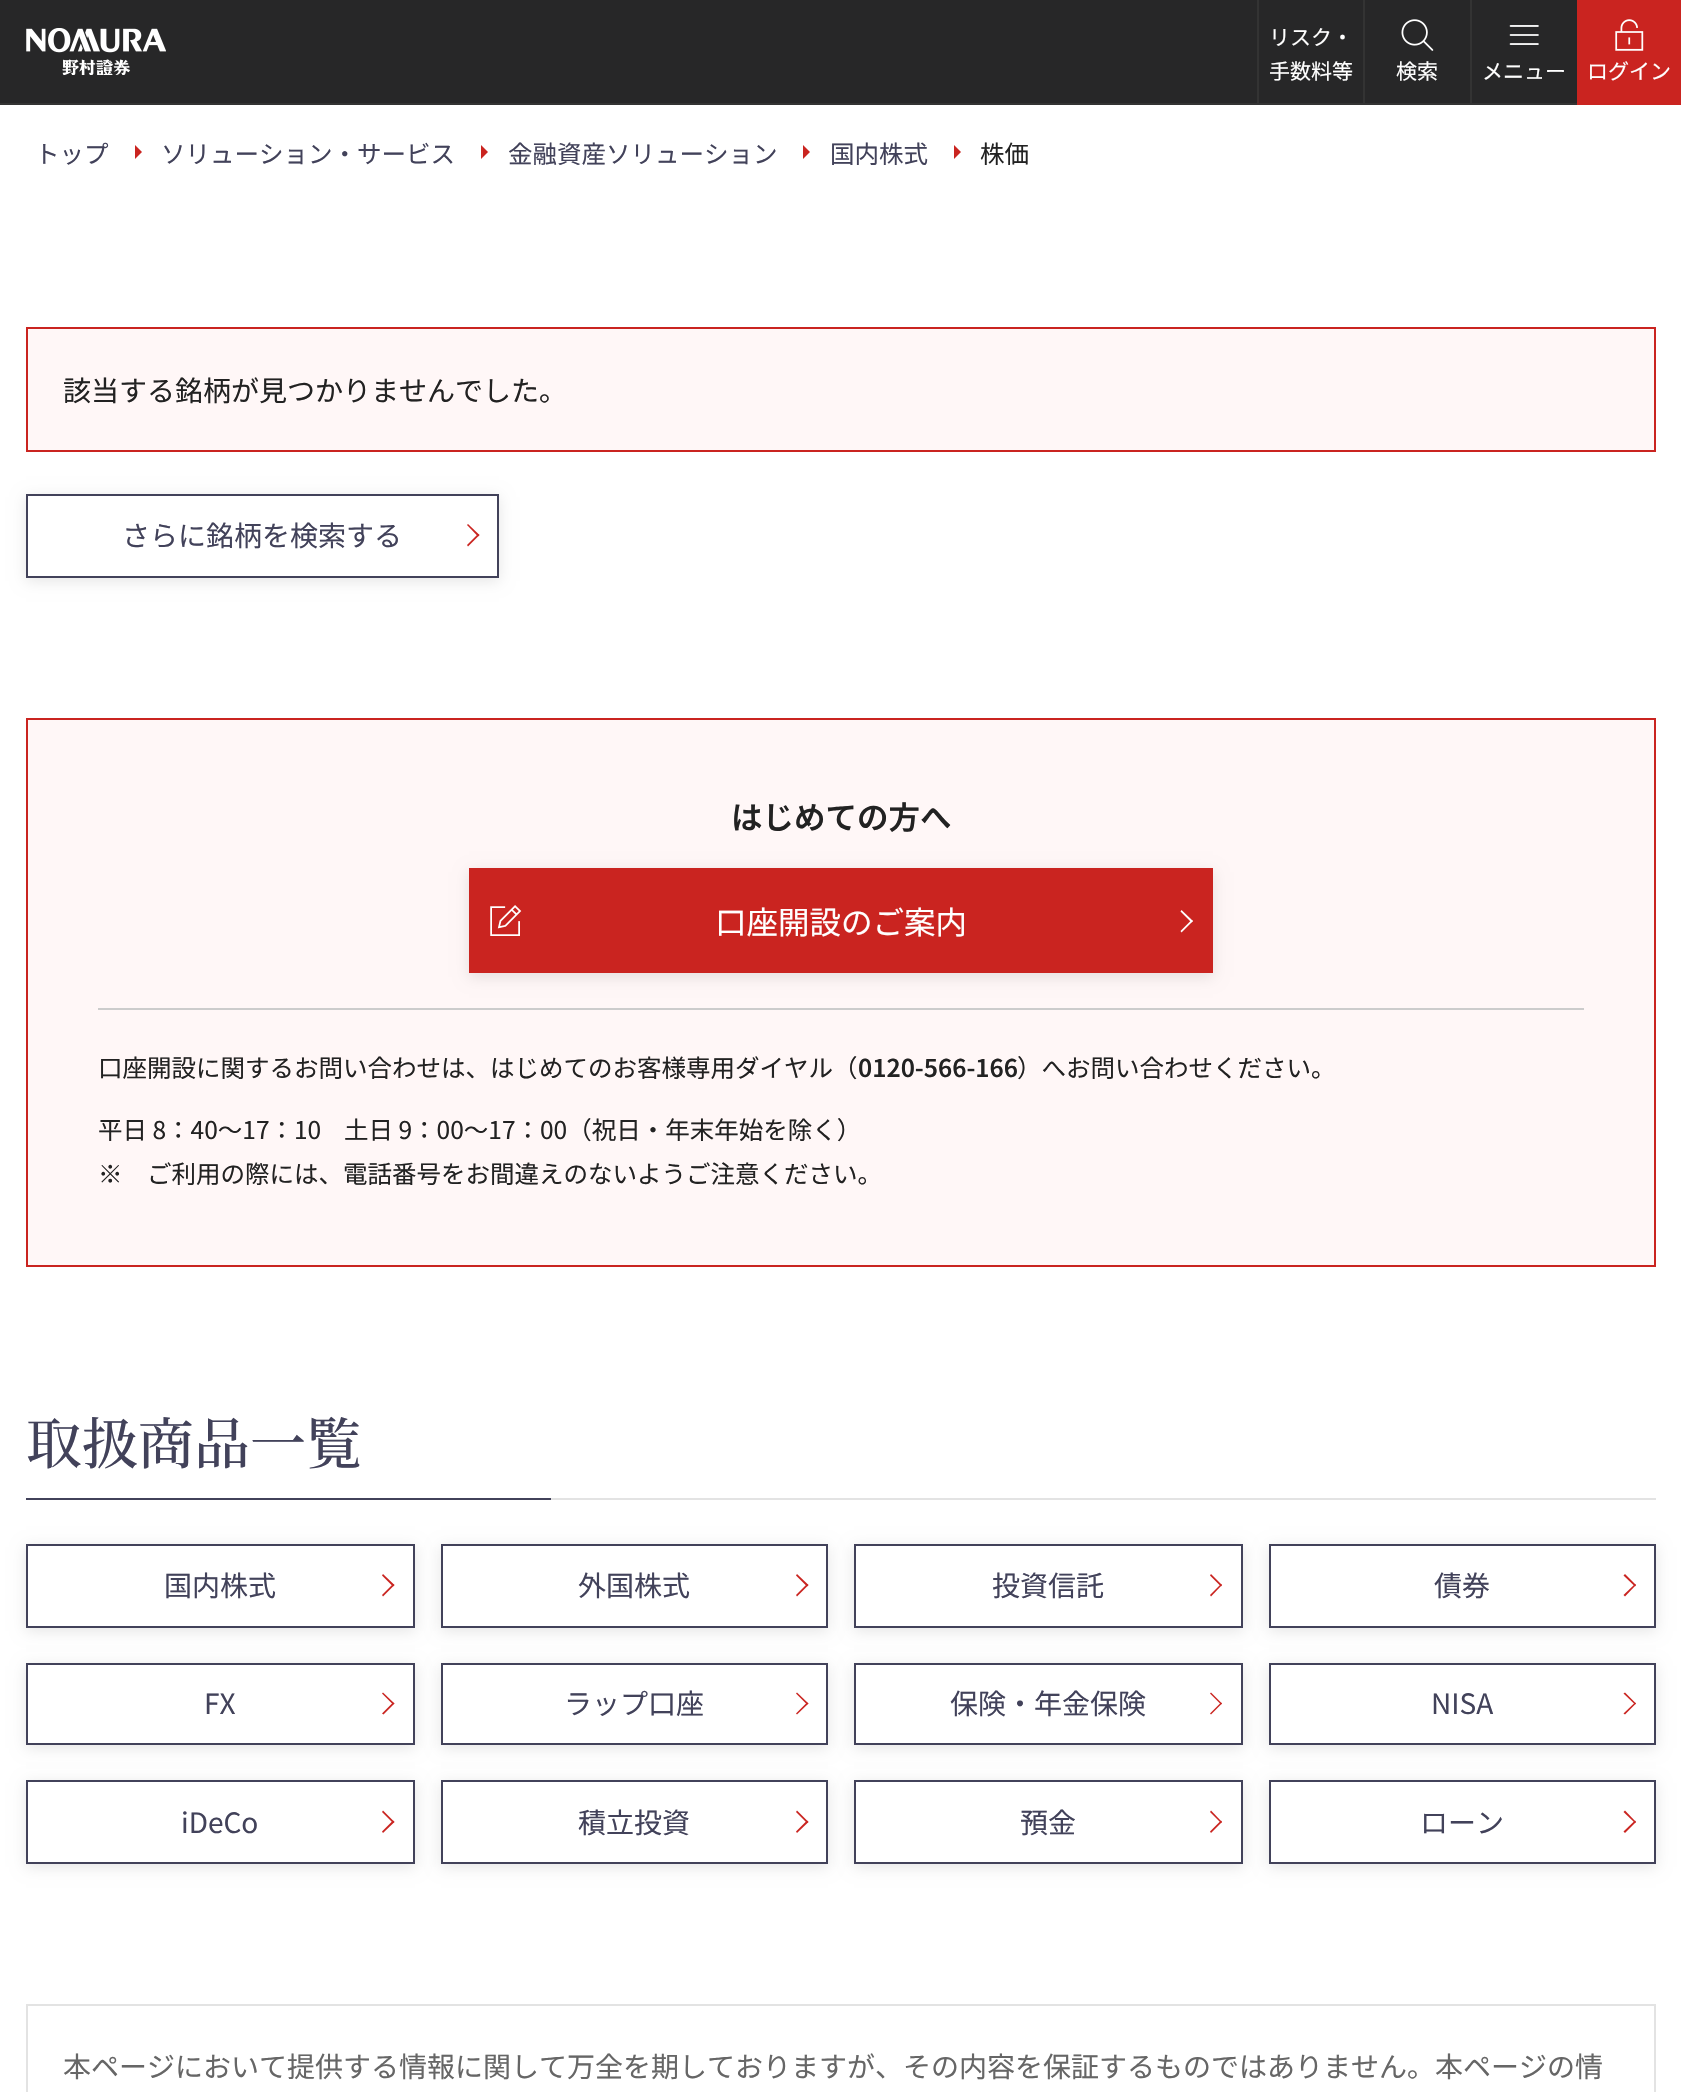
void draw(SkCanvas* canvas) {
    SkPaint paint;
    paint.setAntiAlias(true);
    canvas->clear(0xFFFFFFFF);
    paint.setColor(0xFF272728);
    canvas->drawRect(SkRect::MakeXYWH(0, 0, 1577, 103), paint);
    paint.setColor(0xFF333333);
    canvas->drawRect(SkRect::MakeXYWH(0, 103, 1577, 2), paint);
    canvas->drawImageRect(SkImages::DeferredFromEncodedData(SkData::MakeFromFileName("img1.png")), SkRect::MakeXYWH(26, 28, 140, 47), SkSamplingOptions());
    canvas->drawRect(SkRect::MakeXYWH(1257, 0, 2, 105), paint);
    SkFont font1(fontMgr->matchFamilyStyle("Noto Sans JP", SkFontStyle::Normal()), 21);
    font1.setSubpixel(true);
    paint.setColor(0xFFFFFFFF);
    canvas->drawString("リスク・", 1269, 45, font1, paint);
    canvas->drawString("手数料等", 1269, 79, font1, paint);
    paint.setColor(0xFF333333);
    canvas->drawRect(SkRect::MakeXYWH(1363, 0, 2, 105), paint);
    canvas->drawImageRect(SkImages::DeferredFromEncodedData(SkData::MakeFromFileName("img2.png")), SkRect::MakeXYWH(1401, 19, 33, 32), SkSamplingOptions());
    paint.setColor(0xFFFFFFFF);
    canvas->drawString("検索", 1396, 79, font1, paint);
    paint.setColor(0xFF333333);
    canvas->drawRect(SkRect::MakeXYWH(1470, 0, 2, 105), paint);
    canvas->drawImageRect(SkImages::DeferredFromEncodedData(SkData::MakeFromFileName("img3.png")), SkRect::MakeXYWH(1509, 25, 30, 20), SkSamplingOptions());
    paint.setColor(0xFFFFFFFF);
    canvas->drawString("メニュー", 1482, 79, font1, paint);
    paint.setColor(0xFFCA2420);
    canvas->drawRect(SkRect::MakeXYWH(1577, 0, 104, 105), paint);
    canvas->drawImageRect(SkImages::DeferredFromEncodedData(SkData::MakeFromFileName("img4.png")), SkRect::MakeXYWH(1615, 19, 29, 32), SkSamplingOptions());
    paint.setColor(0xFFFFFFFF);
    canvas->drawString("ログイン", 1587, 79, font1, paint);
    SkFont font2(fontMgr->matchFamilyStyle("Noto Sans JP", SkFontStyle::Normal()), 24.5f);
    font2.setSubpixel(true);
    paint.setColor(0xFF42425A);
    canvas->drawString("トップ", 35, 163, font2, paint);
    paint.setColor(0xFFCA2420);
    canvas->drawPath(SkPathBuilder().moveTo(135, 159).lineTo(135, 145).lineTo(142, 152).close().detach(), paint);
    paint.setColor(0xFF42425A);
    canvas->drawString("ソリューション・サービス", 161, 163, font2, paint);
    paint.setColor(0xFFCA2420);
    canvas->drawPath(SkPathBuilder().moveTo(481, 159).lineTo(481, 145).lineTo(488, 152).close().detach(), paint);
    paint.setColor(0xFF42425A);
    canvas->drawString("金融資産ソリューション", 508, 163, font2, paint);
    paint.setColor(0xFFCA2420);
    canvas->drawPath(SkPathBuilder().moveTo(803, 159).lineTo(803, 145).lineTo(810, 152).close().detach(), paint);
    paint.setColor(0xFF42425A);
    canvas->drawString("国内株式", 830, 163, font2, paint);
    paint.setColor(0xFFCA2420);
    canvas->drawPath(SkPathBuilder().moveTo(954, 159).lineTo(954, 145).lineTo(961, 152).close().detach(), paint);
    paint.setColor(0xFF222222);
    canvas->drawString("株価", 980, 163, font2, paint);
    paint.setColor(0xFFFFF7F7);
    canvas->drawRect(SkRect::MakeXYWH(27, 328, 1628, 123), paint);
    paint.setStyle(SkPaint::kStroke_Style);
    paint.setStrokeWidth(2);
    paint.setColor(0xFFCA2420);
    canvas->drawRect(SkRect::MakeXYWH(27, 328, 1628, 123), paint);
    SkFont font3(fontMgr->matchFamilyStyle("Noto Sans JP", SkFontStyle::Normal()), 28);
    font3.setSubpixel(true);
    paint.setStyle(SkPaint::kFill_Style);
    paint.setColor(0xFF222222);
    canvas->drawString("該当する銘柄が見つかりませんでした。", 63, 401, font3, paint);
    paint.setColor(0x1A000000);
    paint.setMaskFilter(SkMaskFilter::MakeBlur(kNormal_SkBlurStyle, 7));
    canvas->drawRect(SkRect::MakeXYWH(26, 497, 473, 84), paint);
    paint.setMaskFilter(nullptr);
    paint.setColor(0xFFFFFFFF);
    canvas->drawRect(SkRect::MakeXYWH(27, 495, 471, 82), paint);
    paint.setStyle(SkPaint::kStroke_Style);
    paint.setColor(0xFF42425A);
    canvas->drawRect(SkRect::MakeXYWH(27, 495, 471, 82), paint);
    paint.setStyle(SkPaint::kFill_Style);
    canvas->drawString("さらに銘柄を検索する", 122, 546, font3, paint);
    paint.setColor(0xFFCA2420);
    canvas->drawPath(SkPathBuilder().moveTo(468, 524).lineTo(479.5f, 535).lineTo(478, 536.5f).lineTo(467, 525).close().detach(), paint);
    canvas->drawPath(SkPathBuilder().moveTo(478, 534).lineTo(479.5f, 535).lineTo(468, 546.5f).lineTo(467, 545).close().detach(), paint);
    paint.setColor(0xFFFFF7F7);
    canvas->drawRect(SkRect::MakeXYWH(27, 719, 1628, 547), paint);
    paint.setStyle(SkPaint::kStroke_Style);
    paint.setColor(0xFFCA2420);
    canvas->drawRect(SkRect::MakeXYWH(27, 719, 1628, 547), paint);
    SkFont font4(fontMgr->matchFamilyStyle("Noto Sans JP", SkFontStyle(600, SkFontStyle::kNormal_Width, SkFontStyle::kUpright_Slant)), 31.5f);
    font4.setSubpixel(true);
    paint.setStyle(SkPaint::kFill_Style);
    paint.setColor(0xFF222222);
    canvas->drawString("はじめての方へ", 731, 829, font4, paint);
    paint.setColor(0x1A000000);
    paint.setMaskFilter(SkMaskFilter::MakeBlur(kNormal_SkBlurStyle, 7));
    canvas->drawRect(SkRect::MakeXYWH(469, 872, 744, 105), paint);
    paint.setMaskFilter(nullptr);
    paint.setColor(0xFFCA2420);
    canvas->drawRect(SkRect::MakeXYWH(469, 868, 744, 105), paint);
    canvas->drawImageRect(SkImages::DeferredFromEncodedData(SkData::MakeFromFileName("img5.png")), SkRect::MakeXYWH(490, 905, 32, 31), SkSamplingOptions());
    SkFont font5(fontMgr->matchFamilyStyle("Noto Sans JP", SkFontStyle::Normal()), 31.5f);
    font5.setSubpixel(true);
    paint.setColor(0xFFFFFFFF);
    canvas->drawString("口座開設のご案内", 715, 934, font5, paint);
    canvas->drawPath(SkPathBuilder().moveTo(1181.5f, 910).lineTo(1193, 921).lineTo(1191.5f, 922.5f).lineTo(1180.5f, 911.5f).close().detach(), paint);
    canvas->drawPath(SkPathBuilder().moveTo(1191.5f, 920).lineTo(1193, 921).lineTo(1181.5f, 932.5f).lineTo(1180.5f, 931).close().detach(), paint);
    paint.setColor(0xFFCCCCCC);
    canvas->drawRect(SkRect::MakeXYWH(98, 1008, 1486, 2), paint);
    paint.setColor(0xFF222222);
    canvas->drawString("口座開設に関するお問い合わせは、はじめてのお客様専用ダイヤル（", 98, 1077, font2, paint);
    SkFont font6(fontMgr->matchFamilyStyle("Noto Sans JP", SkFontStyle(600, SkFontStyle::kNormal_Width, SkFontStyle::kUpright_Slant)), 24.5f);
    font6.setSubpixel(true);
    canvas->drawString("0120-566-166", 858, 1077, font6, paint);
    canvas->drawString("）へお問い合わせください。", 1017, 1077, font2, paint);
    canvas->drawString("平日 8：40～17：10", 98, 1139, font2, paint);
    canvas->drawString("土日 9：00～17：00（祝日・年末年始を除く）", 344, 1139, font2, paint);
    canvas->drawString("※", 98, 1183, font2, paint);
    canvas->drawString("ご利用の際には、電話番号をお間違えのないようご注意ください。", 147, 1183, font2, paint);
    paint.setColor(0xFFE3E3E3);
    canvas->drawRect(SkRect::MakeXYWH(551, 1498, 1105, 2), paint);
    SkFont font7(fontMgr->matchFamilyStyle("Noto Serif JP", SkFontStyle(500, SkFontStyle::kNormal_Width, SkFontStyle::kUpright_Slant)), 56);
    font7.setSubpixel(true);
    paint.setColor(0xFF42425A);
    canvas->drawString("取扱商品一覧", 26, 1464, font7, paint);
    canvas->drawRect(SkRect::MakeXYWH(26, 1498, 525, 2), paint);
    paint.setColor(0x1A000000);
    paint.setMaskFilter(SkMaskFilter::MakeBlur(kNormal_SkBlurStyle, 7));
    canvas->drawRect(SkRect::MakeXYWH(26, 1547, 389, 84), paint);
    paint.setMaskFilter(nullptr);
    paint.setColor(0xFFFFFFFF);
    canvas->drawRect(SkRect::MakeXYWH(27, 1545, 387, 82), paint);
    paint.setStyle(SkPaint::kStroke_Style);
    paint.setColor(0xFF42425A);
    canvas->drawRect(SkRect::MakeXYWH(27, 1545, 387, 82), paint);
    paint.setStyle(SkPaint::kFill_Style);
    canvas->drawString("国内株式", 164, 1596, font3, paint);
    paint.setColor(0xFFCA2420);
    canvas->drawPath(SkPathBuilder().moveTo(383, 1574).lineTo(394.5f, 1585).lineTo(393, 1586.5f).lineTo(382, 1575.5f).close().detach(), paint);
    canvas->drawPath(SkPathBuilder().moveTo(393, 1584).lineTo(394.5f, 1585).lineTo(383, 1596.5f).lineTo(382, 1595).close().detach(), paint);
    paint.setColor(0x1A000000);
    paint.setMaskFilter(SkMaskFilter::MakeBlur(kNormal_SkBlurStyle, 7));
    canvas->drawRect(SkRect::MakeXYWH(441, 1547, 387, 84), paint);
    paint.setMaskFilter(nullptr);
    paint.setColor(0xFFFFFFFF);
    canvas->drawRect(SkRect::MakeXYWH(442, 1545, 385, 82), paint);
    paint.setStyle(SkPaint::kStroke_Style);
    paint.setColor(0xFF42425A);
    canvas->drawRect(SkRect::MakeXYWH(442, 1545, 385, 82), paint);
    paint.setStyle(SkPaint::kFill_Style);
    canvas->drawString("外国株式", 578, 1596, font3, paint);
    paint.setColor(0xFFCA2420);
    canvas->drawPath(SkPathBuilder().moveTo(797, 1574).lineTo(808.5f, 1585).lineTo(807, 1586.5f).lineTo(796, 1575.5f).close().detach(), paint);
    canvas->drawPath(SkPathBuilder().moveTo(807, 1584).lineTo(808.5f, 1585).lineTo(797, 1596.5f).lineTo(796, 1595).close().detach(), paint);
    paint.setColor(0x1A000000);
    paint.setMaskFilter(SkMaskFilter::MakeBlur(kNormal_SkBlurStyle, 7));
    canvas->drawRect(SkRect::MakeXYWH(854, 1547, 389, 84), paint);
    paint.setMaskFilter(nullptr);
    paint.setColor(0xFFFFFFFF);
    canvas->drawRect(SkRect::MakeXYWH(855, 1545, 387, 82), paint);
    paint.setStyle(SkPaint::kStroke_Style);
    paint.setColor(0xFF42425A);
    canvas->drawRect(SkRect::MakeXYWH(855, 1545, 387, 82), paint);
    paint.setStyle(SkPaint::kFill_Style);
    canvas->drawString("投資信託", 992, 1596, font3, paint);
    paint.setColor(0xFFCA2420);
    canvas->drawPath(SkPathBuilder().moveTo(1211, 1574).lineTo(1222, 1585).lineTo(1221, 1586.5f).lineTo(1210, 1575.5f).close().detach(), paint);
    canvas->drawPath(SkPathBuilder().moveTo(1221, 1584).lineTo(1222, 1585).lineTo(1211, 1596.5f).lineTo(1210, 1595).close().detach(), paint);
    paint.setColor(0x1A000000);
    paint.setMaskFilter(SkMaskFilter::MakeBlur(kNormal_SkBlurStyle, 7));
    canvas->drawRect(SkRect::MakeXYWH(1269, 1547, 387, 84), paint);
    paint.setMaskFilter(nullptr);
    paint.setColor(0xFFFFFFFF);
    canvas->drawRect(SkRect::MakeXYWH(1270, 1545, 385, 82), paint);
    paint.setStyle(SkPaint::kStroke_Style);
    paint.setColor(0xFF42425A);
    canvas->drawRect(SkRect::MakeXYWH(1270, 1545, 385, 82), paint);
    paint.setStyle(SkPaint::kFill_Style);
    canvas->drawString("債券", 1434, 1596, font3, paint);
    paint.setColor(0xFFCA2420);
    canvas->drawPath(SkPathBuilder().moveTo(1625, 1574).lineTo(1636, 1585).lineTo(1635, 1586.5f).lineTo(1623.5f, 1575.5f).close().detach(), paint);
    canvas->drawPath(SkPathBuilder().moveTo(1635, 1584).lineTo(1636, 1585).lineTo(1625, 1596.5f).lineTo(1623.5f, 1595).close().detach(), paint);
    paint.setColor(0x1A000000);
    paint.setMaskFilter(SkMaskFilter::MakeBlur(kNormal_SkBlurStyle, 7));
    canvas->drawRect(SkRect::MakeXYWH(26, 1666, 389, 82), paint);
    paint.setMaskFilter(nullptr);
    paint.setColor(0xFFFFFFFF);
    canvas->drawRect(SkRect::MakeXYWH(27, 1664, 387, 80), paint);
    paint.setStyle(SkPaint::kStroke_Style);
    paint.setColor(0xFF42425A);
    canvas->drawRect(SkRect::MakeXYWH(27, 1664, 387, 80), paint);
    paint.setStyle(SkPaint::kFill_Style);
    canvas->drawString("FX", 204, 1714, font3, paint);
    paint.setColor(0xFFCA2420);
    canvas->drawPath(SkPathBuilder().moveTo(383, 1692.5f).lineTo(394.5f, 1703.5f).lineTo(393, 1704.5f).lineTo(382, 1693.5f).close().detach(), paint);
    canvas->drawPath(SkPathBuilder().moveTo(393, 1702.5f).lineTo(394.5f, 1703.5f).lineTo(383.5f, 1714.5f).lineTo(382, 1713.5f).close().detach(), paint);
    paint.setColor(0x1A000000);
    paint.setMaskFilter(SkMaskFilter::MakeBlur(kNormal_SkBlurStyle, 7));
    canvas->drawRect(SkRect::MakeXYWH(441, 1666, 387, 82), paint);
    paint.setMaskFilter(nullptr);
    paint.setColor(0xFFFFFFFF);
    canvas->drawRect(SkRect::MakeXYWH(442, 1664, 385, 80), paint);
    paint.setStyle(SkPaint::kStroke_Style);
    paint.setColor(0xFF42425A);
    canvas->drawRect(SkRect::MakeXYWH(442, 1664, 385, 80), paint);
    paint.setStyle(SkPaint::kFill_Style);
    canvas->drawString("ラップ口座", 564, 1714, font3, paint);
    paint.setColor(0xFFCA2420);
    canvas->drawPath(SkPathBuilder().moveTo(797, 1692.5f).lineTo(808.5f, 1703.5f).lineTo(807, 1704.5f).lineTo(796, 1693.5f).close().detach(), paint);
    canvas->drawPath(SkPathBuilder().moveTo(807, 1702.5f).lineTo(808.5f, 1703.5f).lineTo(797, 1714.5f).lineTo(796, 1713.5f).close().detach(), paint);
    paint.setColor(0x1A000000);
    paint.setMaskFilter(SkMaskFilter::MakeBlur(kNormal_SkBlurStyle, 7));
    canvas->drawRect(SkRect::MakeXYWH(854, 1666, 389, 82), paint);
    paint.setMaskFilter(nullptr);
    paint.setColor(0xFFFFFFFF);
    canvas->drawRect(SkRect::MakeXYWH(855, 1664, 387, 80), paint);
    paint.setStyle(SkPaint::kStroke_Style);
    paint.setColor(0xFF42425A);
    canvas->drawRect(SkRect::MakeXYWH(855, 1664, 387, 80), paint);
    paint.setStyle(SkPaint::kFill_Style);
    canvas->drawString("保険・年金保険", 950, 1714, font3, paint);
    paint.setColor(0xFFCA2420);
    canvas->drawPath(SkPathBuilder().moveTo(1211, 1692.5f).lineTo(1222, 1703.5f).lineTo(1221, 1704.5f).lineTo(1210, 1693.5f).close().detach(), paint);
    canvas->drawPath(SkPathBuilder().moveTo(1221, 1702.5f).lineTo(1222, 1703.5f).lineTo(1211, 1714.5f).lineTo(1210, 1713.5f).close().detach(), paint);
    paint.setColor(0x1A000000);
    paint.setMaskFilter(SkMaskFilter::MakeBlur(kNormal_SkBlurStyle, 7));
    canvas->drawRect(SkRect::MakeXYWH(1269, 1666, 387, 82), paint);
    paint.setMaskFilter(nullptr);
    paint.setColor(0xFFFFFFFF);
    canvas->drawRect(SkRect::MakeXYWH(1270, 1664, 385, 80), paint);
    paint.setStyle(SkPaint::kStroke_Style);
    paint.setColor(0xFF42425A);
    canvas->drawRect(SkRect::MakeXYWH(1270, 1664, 385, 80), paint);
    paint.setStyle(SkPaint::kFill_Style);
    canvas->drawString("NISA", 1431, 1714, font3, paint);
    paint.setColor(0xFFCA2420);
    canvas->drawPath(SkPathBuilder().moveTo(1625, 1692.5f).lineTo(1636, 1703.5f).lineTo(1635, 1704.5f).lineTo(1623.5f, 1693.5f).close().detach(), paint);
    canvas->drawPath(SkPathBuilder().moveTo(1635, 1702.5f).lineTo(1636, 1703.5f).lineTo(1625, 1714.5f).lineTo(1623.5f, 1713.5f).close().detach(), paint);
    paint.setColor(0x1A000000);
    paint.setMaskFilter(SkMaskFilter::MakeBlur(kNormal_SkBlurStyle, 7));
    canvas->drawRect(SkRect::MakeXYWH(26, 1783, 389, 84), paint);
    paint.setMaskFilter(nullptr);
    paint.setColor(0xFFFFFFFF);
    canvas->drawRect(SkRect::MakeXYWH(27, 1781, 387, 82), paint);
    paint.setStyle(SkPaint::kStroke_Style);
    paint.setColor(0xFF42425A);
    canvas->drawRect(SkRect::MakeXYWH(27, 1781, 387, 82), paint);
    paint.setStyle(SkPaint::kFill_Style);
    canvas->drawString("iDeCo", 181, 1833, font3, paint);
    paint.setColor(0xFFCA2420);
    canvas->drawPath(SkPathBuilder().moveTo(383, 1810.5f).lineTo(394.5f, 1822).lineTo(393, 1823).lineTo(382, 1812).close().detach(), paint);
    canvas->drawPath(SkPathBuilder().moveTo(393, 1820.5f).lineTo(394.5f, 1822).lineTo(383, 1833).lineTo(382, 1831.5f).close().detach(), paint);
    paint.setColor(0x1A000000);
    paint.setMaskFilter(SkMaskFilter::MakeBlur(kNormal_SkBlurStyle, 7));
    canvas->drawRect(SkRect::MakeXYWH(441, 1783, 387, 84), paint);
    paint.setMaskFilter(nullptr);
    paint.setColor(0xFFFFFFFF);
    canvas->drawRect(SkRect::MakeXYWH(442, 1781, 385, 82), paint);
    paint.setStyle(SkPaint::kStroke_Style);
    paint.setColor(0xFF42425A);
    canvas->drawRect(SkRect::MakeXYWH(442, 1781, 385, 82), paint);
    paint.setStyle(SkPaint::kFill_Style);
    canvas->drawString("積立投資", 578, 1833, font3, paint);
    paint.setColor(0xFFCA2420);
    canvas->drawPath(SkPathBuilder().moveTo(797, 1810.5f).lineTo(808.5f, 1822).lineTo(807, 1823).lineTo(796, 1812).close().detach(), paint);
    canvas->drawPath(SkPathBuilder().moveTo(807, 1820.5f).lineTo(808.5f, 1822).lineTo(797, 1833).lineTo(796, 1831.5f).close().detach(), paint);
    paint.setColor(0x1A000000);
    paint.setMaskFilter(SkMaskFilter::MakeBlur(kNormal_SkBlurStyle, 7));
    canvas->drawRect(SkRect::MakeXYWH(854, 1783, 389, 84), paint);
    paint.setMaskFilter(nullptr);
    paint.setColor(0xFFFFFFFF);
    canvas->drawRect(SkRect::MakeXYWH(855, 1781, 387, 82), paint);
    paint.setStyle(SkPaint::kStroke_Style);
    paint.setColor(0xFF42425A);
    canvas->drawRect(SkRect::MakeXYWH(855, 1781, 387, 82), paint);
    paint.setStyle(SkPaint::kFill_Style);
    canvas->drawString("預金", 1020, 1833, font3, paint);
    paint.setColor(0xFFCA2420);
    canvas->drawPath(SkPathBuilder().moveTo(1211, 1810.5f).lineTo(1222, 1822).lineTo(1221, 1823).lineTo(1210, 1812).close().detach(), paint);
    canvas->drawPath(SkPathBuilder().moveTo(1221, 1820.5f).lineTo(1222, 1822).lineTo(1211, 1833).lineTo(1210, 1831.5f).close().detach(), paint);
    paint.setColor(0x1A000000);
    paint.setMaskFilter(SkMaskFilter::MakeBlur(kNormal_SkBlurStyle, 7));
    canvas->drawRect(SkRect::MakeXYWH(1269, 1783, 387, 84), paint);
    paint.setMaskFilter(nullptr);
    paint.setColor(0xFFFFFFFF);
    canvas->drawRect(SkRect::MakeXYWH(1270, 1781, 385, 82), paint);
    paint.setStyle(SkPaint::kStroke_Style);
    paint.setColor(0xFF42425A);
    canvas->drawRect(SkRect::MakeXYWH(1270, 1781, 385, 82), paint);
    paint.setStyle(SkPaint::kFill_Style);
    canvas->drawString("ローン", 1420, 1833, font3, paint);
    paint.setColor(0xFFCA2420);
    canvas->drawPath(SkPathBuilder().moveTo(1625, 1810.5f).lineTo(1636, 1822).lineTo(1635, 1823).lineTo(1623.5f, 1812).close().detach(), paint);
    canvas->drawPath(SkPathBuilder().moveTo(1635, 1820.5f).lineTo(1636, 1822).lineTo(1625, 1833).lineTo(1623.5f, 1831.5f).close().detach(), paint);
    paint.setStyle(SkPaint::kStroke_Style);
    paint.setColor(0xFFE3E3E3);
    canvas->drawRect(SkRect::MakeXYWH(27, 2005, 1628, 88), paint);
    paint.setStyle(SkPaint::kFill_Style);
    paint.setColor(0xFF666666);
    canvas->drawString("本ページにおいて提供する情報に関して万全を期しておりますが、その内容を保証するものではありません。本ページの情", 63, 2077, font3, paint);
}
